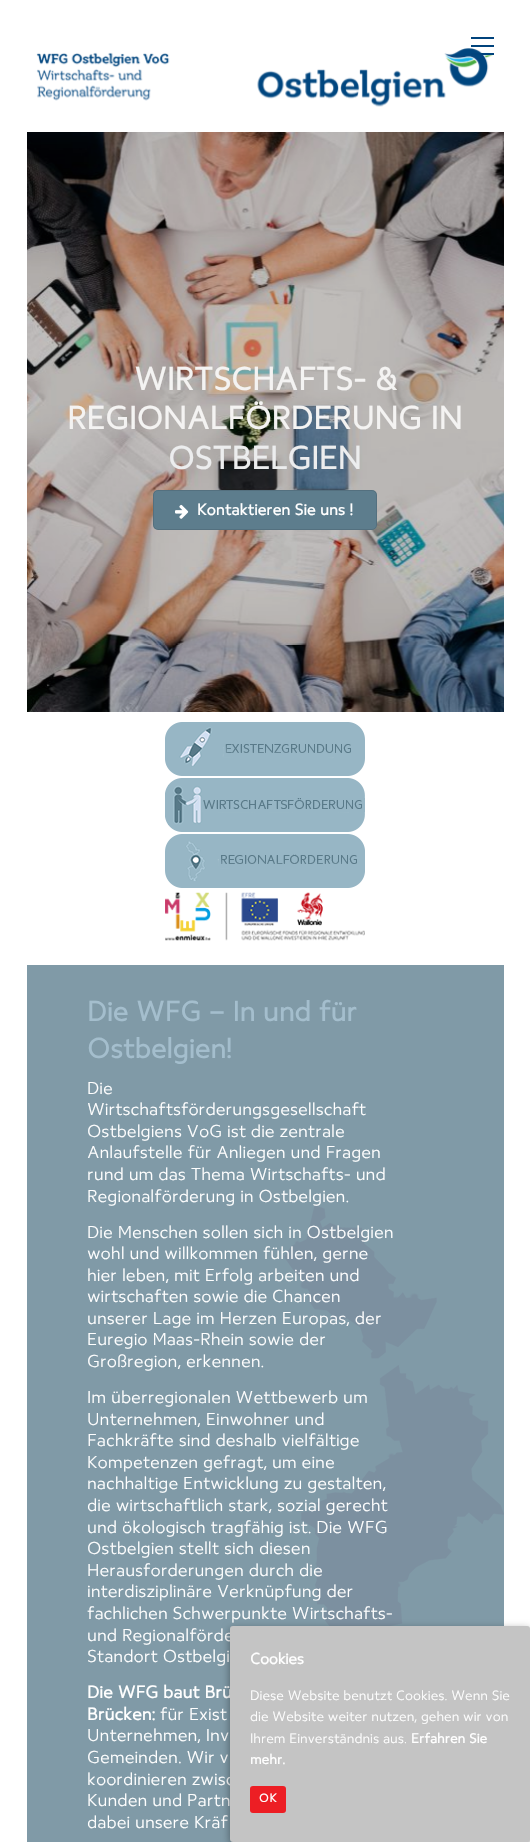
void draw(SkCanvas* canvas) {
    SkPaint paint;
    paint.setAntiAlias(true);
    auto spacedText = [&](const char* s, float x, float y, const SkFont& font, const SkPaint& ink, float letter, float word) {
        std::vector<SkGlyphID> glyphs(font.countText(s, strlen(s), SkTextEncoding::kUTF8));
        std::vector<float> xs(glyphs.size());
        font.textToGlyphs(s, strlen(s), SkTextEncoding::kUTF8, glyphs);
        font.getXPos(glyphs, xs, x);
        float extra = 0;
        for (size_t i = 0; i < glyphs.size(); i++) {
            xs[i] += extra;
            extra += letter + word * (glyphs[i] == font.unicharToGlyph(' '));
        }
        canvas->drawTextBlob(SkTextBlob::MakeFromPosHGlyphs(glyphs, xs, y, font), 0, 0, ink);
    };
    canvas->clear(0xFFFFFFFF);
    canvas->drawImageRect(SkImages::DeferredFromEncodedData(SkData::MakeFromFileName("img1.png")), SkRect::MakeXYWH(36, 48, 457, 59), SkSamplingOptions());
    paint.setColor(0xFF00437C);
    canvas->drawRect(SkRect::MakeXYWH(471, 53, 23, 2), paint);
    canvas->drawRect(SkRect::MakeXYWH(471, 37, 23, 2), paint);
    canvas->drawRect(SkRect::MakeXYWH(471, 45, 23, 2), paint);
    canvas->drawImageRect(SkImages::DeferredFromEncodedData(SkData::MakeFromFileName("img2.png")), SkRect::MakeXYWH(27, 132, 477, 580), SkSamplingOptions());
    SkFont font1(fontMgr->matchFamilyStyle("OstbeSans", SkFontStyle::Bold()), 33);
    font1.setSubpixel(true);
    paint.setColor(0xFFF4F3F2);
    canvas->drawString("WIRTSCHAFTS- &", 134, 390, font1, paint);
    canvas->drawString("REGIONALFÖRDERUNG IN", 67, 429, font1, paint);
    paint.setColor(0xFFECEDEE);
    canvas->drawString("OSTBELGIEN", 168, 469, font1, paint);
    paint.setColor(0xFF5D7D8D);
    canvas->drawRoundRect(SkRect::MakeXYWH(153, 490, 224, 40), 5, 5, paint);
    paint.setStyle(SkPaint::kStroke_Style);
    paint.setStrokeWidth(1);
    paint.setColor(0x1A000000);
    canvas->drawRoundRect(SkRect::MakeXYWH(153.5f, 490.5f, 223, 39), 4.5f, 4.5f, paint);
    canvas->drawImageRect(SkImages::DeferredFromEncodedData(SkData::MakeFromFileName("img3.png")), SkRect::MakeXYWH(175, 504, 14, 15), SkSamplingOptions());
    SkFont font2(fontMgr->matchFamilyStyle("OstbeSans", SkFontStyle::Bold()), 16.25f);
    font2.setSubpixel(true);
    paint.setStyle(SkPaint::kFill_Style);
    paint.setColor(0xFFFFFFFF);
    canvas->drawString("Kontaktieren Sie uns !", 197, 515, font2, paint);
    canvas->drawImageRect(SkImages::DeferredFromEncodedData(SkData::MakeFromFileName("img4.png")), SkRect::MakeXYWH(165, 722, 200, 54), SkSamplingOptions());
    canvas->drawImageRect(SkImages::DeferredFromEncodedData(SkData::MakeFromFileName("img5.png")), SkRect::MakeXYWH(165, 778, 200, 54), SkSamplingOptions());
    canvas->drawImageRect(SkImages::DeferredFromEncodedData(SkData::MakeFromFileName("img6.png")), SkRect::MakeXYWH(165, 834, 200, 54), SkSamplingOptions());
    canvas->drawImageRect(SkImages::DeferredFromEncodedData(SkData::MakeFromFileName("img7.png")), SkRect::MakeXYWH(165, 892, 200, 49), SkSamplingOptions());
    paint.setColor(0xFF809AA7);
    canvas->drawRect(SkRect::MakeXYWH(27, 965, 477, 877), paint);
    canvas->drawImageRect(SkImages::DeferredFromEncodedData(SkData::MakeFromFileName("img8.png")), SkRect::MakeXYWH(284, 1205, 220, 421), SkSamplingOptions());
    SkFont font3(fontMgr->matchFamilyStyle("OstbeSans", SkFontStyle::Bold()), 28.75f);
    font3.setSubpixel(true);
    paint.setColor(0xFFA4BECD);
    canvas->drawString("Die WFG – In und für", 87, 1021, font3, paint);
    canvas->drawString("Ostbelgien!", 87, 1058, font3, paint);
    SkFont font4(fontMgr->matchFamilyStyle("OstbeSans", SkFontStyle::Normal()), 18);
    font4.setSubpixel(true);
    paint.setColor(0xFFFFFFFF);
    canvas->drawString("Die", 87, 1094, font4, paint);
    canvas->drawString("Wirtschaftsförderungsgesellschaft", 87, 1115, font4, paint);
    canvas->drawString("Ostbelgiens VoG ist die zentrale", 87, 1137, font4, paint);
    canvas->drawString("Anlaufstelle für Anliegen und Fragen", 87, 1158, font4, paint);
    canvas->drawString("rund um das Thema Wirtschafts- und", 87, 1180, font4, paint);
    canvas->drawString("Regionalförderung in Ostbelgien.", 87, 1202, font4, paint);
    canvas->drawString("Die Menschen sollen sich in Ostbelgien", 87, 1238, font4, paint);
    canvas->drawString("wohl und willkommen fühlen, gerne", 87, 1259, font4, paint);
    canvas->drawString("hier leben, mit Erfolg arbeiten und", 87, 1281, font4, paint);
    canvas->drawString("wirtschaften sowie die Chancen", 87, 1302, font4, paint);
    canvas->drawString("unserer Lage im Herzen Europas, der", 87, 1324, font4, paint);
    canvas->drawString("Euregio Maas-Rhein sowie der", 87, 1345, font4, paint);
    canvas->drawString("Großregion, erkennen.", 87, 1367, font4, paint);
    canvas->drawString("Im überregionalen Wettbewerb um", 87, 1403, font4, paint);
    canvas->drawString("Unternehmen, Einwohner und", 87, 1425, font4, paint);
    canvas->drawString("Fachkräfte sind deshalb vielfältige", 87, 1446, font4, paint);
    canvas->drawString("Kompetenzen gefragt, um eine", 87, 1468, font4, paint);
    canvas->drawString("nachhaltige Entwicklung zu gestalten,", 87, 1489, font4, paint);
    canvas->drawString("die wirtschaftlich stark, sozial gerecht", 87, 1511, font4, paint);
    canvas->drawString("und ökologisch tragfähig ist. Die WFG", 87, 1533, font4, paint);
    canvas->drawString("Ostbelgien stellt sich diesen", 87, 1554, font4, paint);
    canvas->drawString("Herausforderungen durch die", 87, 1576, font4, paint);
    canvas->drawString("interdisziplinäre Verknüpfung der", 87, 1597, font4, paint);
    canvas->drawString("fachlichen Schwerpunkte Wirtschafts-", 87, 1619, font4, paint);
    canvas->drawString("und Regionalförde", 87, 1641, font4, paint);
    canvas->drawString("Standort Ostbelgi", 87, 1662, font4, paint);
    SkFont font5(fontMgr->matchFamilyStyle("OstbeSans", SkFontStyle::Bold()), 18);
    font5.setSubpixel(true);
    canvas->drawString("Die WFG baut Brü", 87, 1698, font5, paint);
    canvas->drawString("Brücken:", 87, 1720, font5, paint);
    canvas->drawString("für Exist", 160, 1720, font4, paint);
    canvas->drawString("Unternehmen, Inv", 87, 1741, font4, paint);
    canvas->drawString("Gemeinden. Wir v", 87, 1763, font4, paint);
    canvas->drawString("koordinieren zwisc", 87, 1785, font4, paint);
    canvas->drawString("Kunden und Partn", 87, 1806, font4, paint);
    canvas->drawString("dabei unsere Kräf", 87, 1828, font4, paint);
    paint.setColor(0x66000000);
    paint.setMaskFilter(SkMaskFilter::MakeBlur(kNormal_SkBlurStyle, 4.5f));
    canvas->drawRoundRect(SkRect::MakeXYWH(230, 1629, 300, 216), 3, 3, paint);
    paint.setMaskFilter(nullptr);
    paint.setColor(0xFFC4C4C4);
    canvas->drawRoundRect(SkRect::MakeXYWH(230, 1626, 300, 216), 3, 3, paint);
    SkFont font6(fontMgr->matchFamilyStyle("OstbeSans", SkFontStyle::Bold()), 16);
    font6.setSubpixel(true);
    paint.setColor(0xFFFFFFFF);
    spacedText("Cookies", 250, 1664, font6, paint, -0.25f, 0);
    SkFont font7(fontMgr->matchFamilyStyle("OstbeSans", SkFontStyle::Normal()), 14);
    font7.setSubpixel(true);
    canvas->drawString("Diese Website benutzt Cookies. Wenn Sie", 250, 1700, font7, paint);
    canvas->drawString("die Website weiter nutzen, gehen wir von", 250, 1721, font7, paint);
    canvas->drawString("Ihrem Einverständnis aus.", 250, 1743, font7, paint);
    SkFont font8(fontMgr->matchFamilyStyle("OstbeSans", SkFontStyle::Bold()), 14);
    font8.setSubpixel(true);
    canvas->drawString("Erfahren Sie", 411, 1743, font8, paint);
    canvas->drawString("mehr.", 250, 1764, font8, paint);
    paint.setColor(0xFFED1E24);
    canvas->drawRoundRect(SkRect::MakeXYWH(250, 1786, 36, 27), 3, 3, paint);
    SkFont font9(fontMgr->matchFamilyStyle("OstbeSans", SkFontStyle::Bold()), 12);
    font9.setSubpixel(true);
    paint.setColor(0xFFFFFFFF);
    spacedText("OK", 259, 1802, font9, paint, 1, 0);
}
